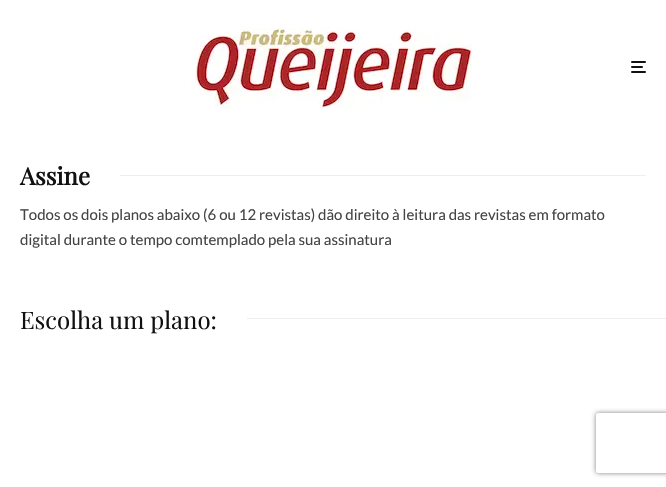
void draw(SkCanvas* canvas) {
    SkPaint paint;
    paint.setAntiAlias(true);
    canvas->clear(0xFFFFFFFF);
    canvas->drawImageRect(SkImages::DeferredFromEncodedData(SkData::MakeFromFileName("img1.png")), SkRect::MakeXYWH(191, 28, 281, 81), SkSamplingOptions());
    paint.setColor(0xFF111111);
    canvas->drawRoundRect(SkRect::MakeXYWH(631, 66, 12, 2), 1, 1, paint);
    canvas->drawRoundRect(SkRect::MakeXYWH(631, 61, 15, 2), 1, 1, paint);
    canvas->drawRoundRect(SkRect::MakeXYWH(631, 71, 15, 2), 1, 1, paint);
    SkFont font1(fontMgr->matchFamilyStyle("Playfair Display", SkFontStyle::Bold()), 24);
    font1.setSubpixel(true);
    canvas->drawString("Assine", 20, 185, font1, paint);
    paint.setColor(0xFFEEEEEE);
    canvas->drawRect(SkRect::MakeXYWH(120, 175, 526, 1), paint);
    SkFont font2(fontMgr->matchFamilyStyle("Lato", SkFontStyle::Normal()), 15);
    font2.setSubpixel(true);
    paint.setColor(0xFF444444);
    canvas->drawString("Todos os dois planos abaixo (6 ou 12 revistas) dão direito à leitura das revistas em formato", 20, 220, font2, paint);
    canvas->drawString("digital durante o tempo comtemplado pela sua assinatura", 20, 245, font2, paint);
    SkFont font3(fontMgr->matchFamilyStyle("Playfair Display", SkFontStyle::Normal()), 24);
    font3.setSubpixel(true);
    paint.setColor(0xFF111111);
    canvas->drawString("Escolha um plano:", 20, 329, font3, paint);
    paint.setColor(0xFFEEEEEE);
    canvas->drawRect(SkRect::MakeXYWH(247, 318, 419, 1), paint);
    canvas->save();
    canvas->clipPath(SkPathBuilder(SkPathFillType::kEvenOdd).moveTo(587, 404).lineTo(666, 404).lineTo(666, 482).lineTo(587, 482).close().moveTo(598, 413).lineTo(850, 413).cubicTo(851, 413, 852, 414, 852, 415).lineTo(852, 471).cubicTo(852, 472, 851, 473, 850, 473).lineTo(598, 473).cubicTo(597, 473, 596, 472, 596, 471).lineTo(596, 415).cubicTo(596, 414, 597, 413, 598, 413).close().detach(), true);
    paint.setColor(0xFF808080);
    paint.setMaskFilter(SkMaskFilter::MakeBlur(kNormal_SkBlurStyle, 2.5f));
    canvas->drawRoundRect(SkRect::MakeXYWH(596, 413, 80, 60), 2, 2, paint);
    paint.setMaskFilter(nullptr);
    canvas->restore();
}
